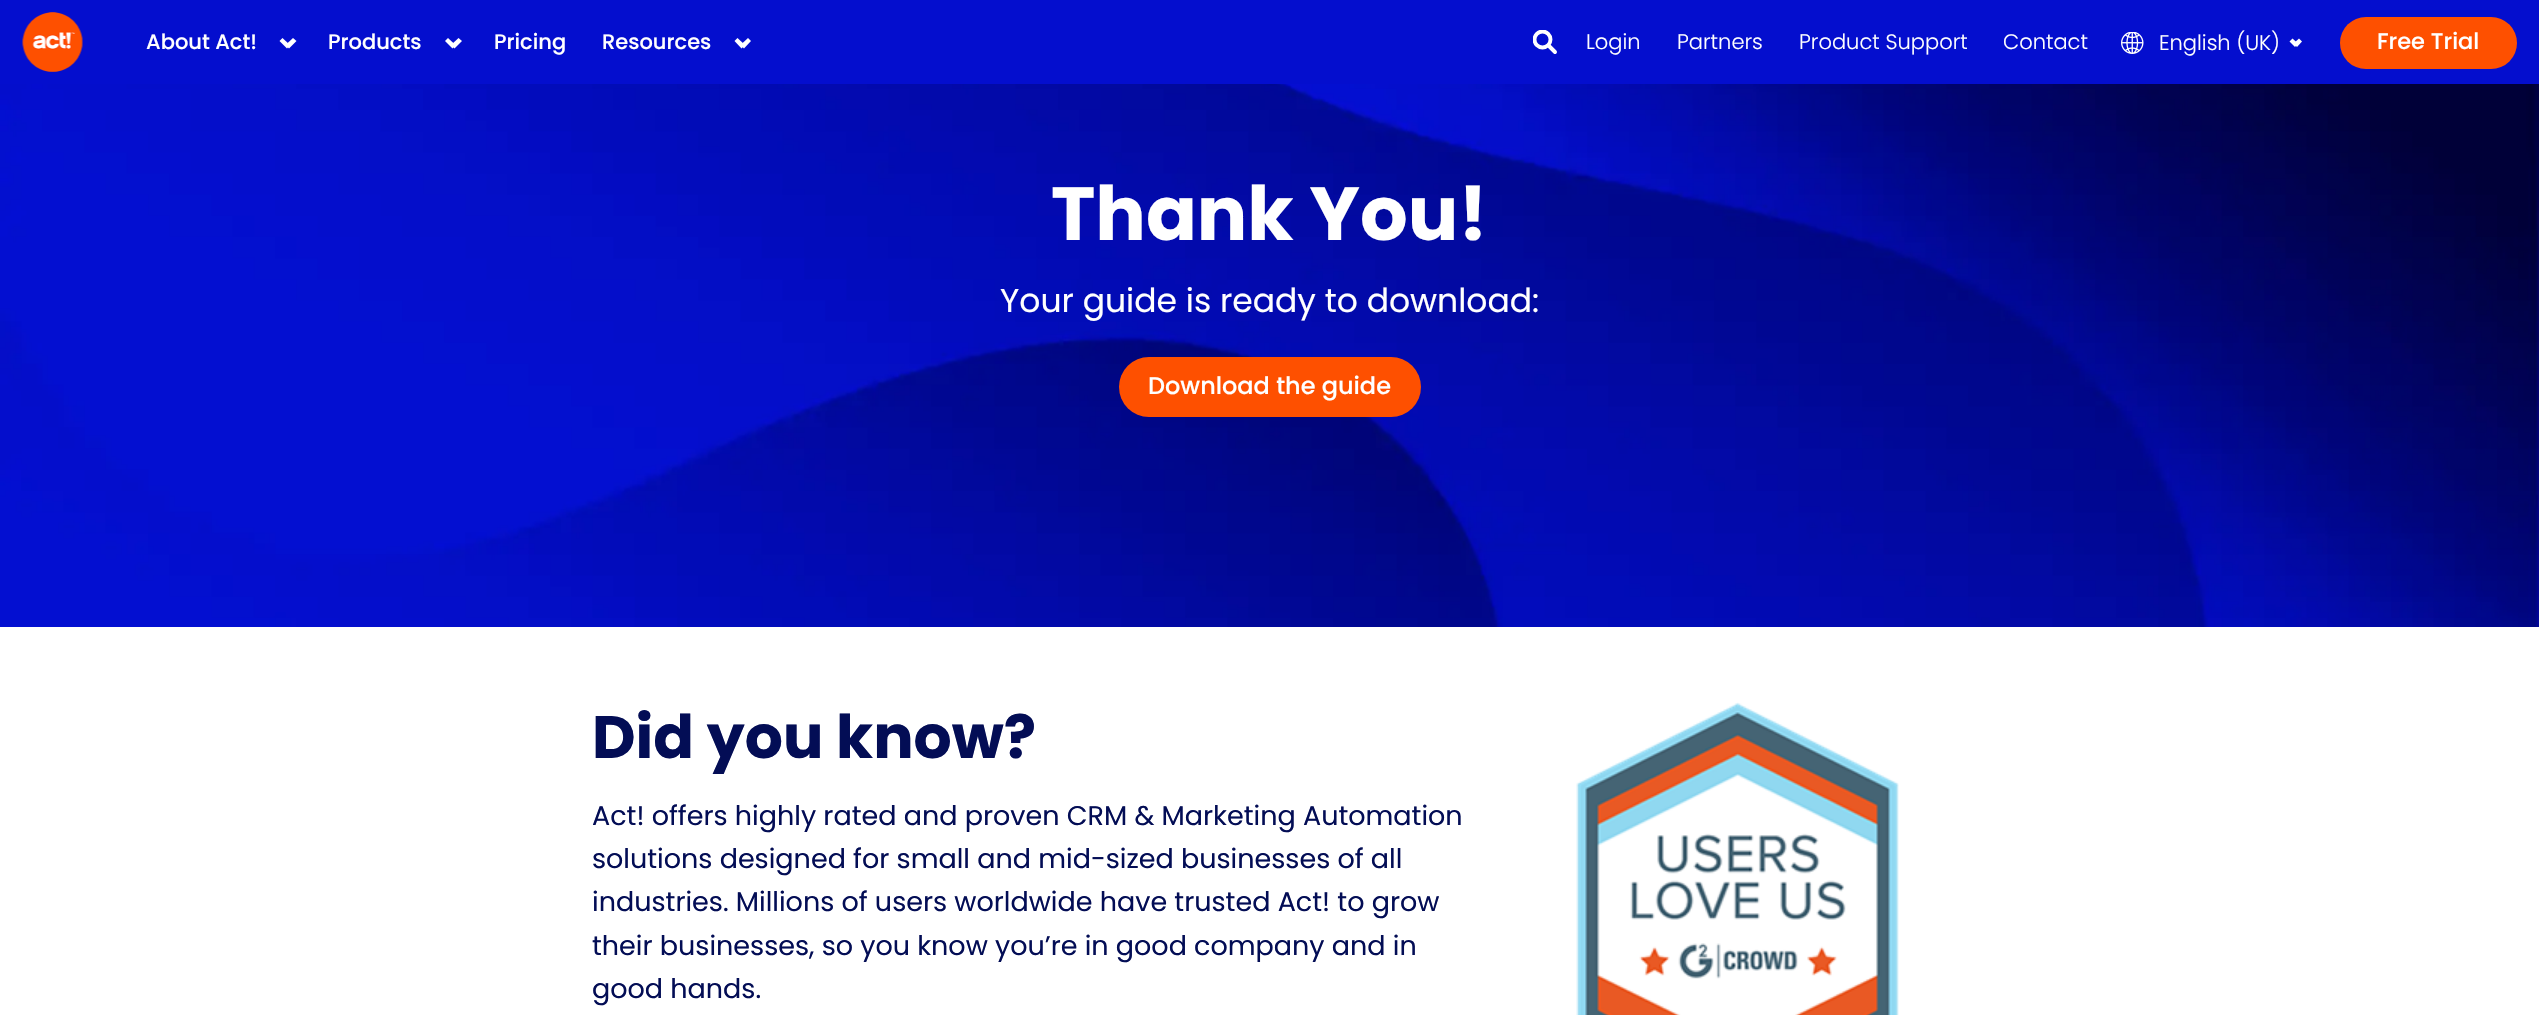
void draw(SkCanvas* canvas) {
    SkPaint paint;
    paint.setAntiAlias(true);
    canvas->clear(0xFFFFFFFF);
    paint.setColor(0xFF040ECE);
    canvas->drawRect(SkRect::MakeXYWH(0, 0, 2539, 84), paint);
    canvas->drawImageRect(SkImages::DeferredFromEncodedData(SkData::MakeFromFileName("img1.png")), SkRect::MakeXYWH(22, 12, 61, 60), SkSamplingOptions());
    SkFont font1(fontMgr->matchFamilyStyle("Poppins", SkFontStyle(500, SkFontStyle::kNormal_Width, SkFontStyle::kUpright_Slant)), 21);
    font1.setSubpixel(true);
    paint.setColor(0xFFFFFFFF);
    canvas->drawString("About Act!", 146, 49, font1, paint);
    canvas->drawPath(SkPathBuilder().moveTo(293, 38).lineTo(296.5f, 41).lineTo(289, 48.5f).lineTo(285.5f, 45).close().detach(), paint);
    canvas->drawPath(SkPathBuilder().moveTo(282.5f, 38).lineTo(290, 45).lineTo(287, 48.5f).lineTo(279.5f, 41).close().detach(), paint);
    canvas->drawString("Products", 328, 49, font1, paint);
    canvas->drawPath(SkPathBuilder().moveTo(458.5f, 38).lineTo(462, 41).lineTo(454.5f, 48.5f).lineTo(451, 45).close().detach(), paint);
    canvas->drawPath(SkPathBuilder().moveTo(448, 38).lineTo(455.5f, 45).lineTo(452.5f, 48.5f).lineTo(445, 41).close().detach(), paint);
    canvas->drawString("Pricing", 494, 49, font1, paint);
    canvas->drawString("Resources", 602, 49, font1, paint);
    canvas->drawPath(SkPathBuilder().moveTo(748, 38).lineTo(751, 41).lineTo(744, 48.5f).lineTo(740.5f, 45).close().detach(), paint);
    canvas->drawPath(SkPathBuilder().moveTo(737.5f, 38).lineTo(745, 45).lineTo(741.5f, 48.5f).lineTo(734.5f, 41).close().detach(), paint);
    canvas->save();
    canvas->clipRect(SkRect::MakeXYWH(1533, 30, 24, 24));
    paint.setStyle(SkPaint::kStroke_Style);
    paint.setStrokeWidth(3.9f);
    canvas->drawCircle(1542.5f, 39.5f, 8, paint);
    canvas->restore();
    paint.setStrokeCap(SkPaint::kRound_Cap);
    canvas->drawPath(SkPathBuilder().moveTo(1548.5f, 45.5f).lineTo(1555, 52).detach(), paint);
    SkFont font2(fontMgr->matchFamilyStyle("Poppins", SkFontStyle(300, SkFontStyle::kNormal_Width, SkFontStyle::kUpright_Slant)), 21);
    font2.setSubpixel(true);
    paint.setStyle(SkPaint::kFill_Style);
    canvas->drawString("Login", 1586, 49, font2, paint);
    canvas->drawString("Partners", 1677, 49, font2, paint);
    canvas->drawString("Product Support", 1799, 49, font2, paint);
    canvas->drawString("Contact", 2003, 49, font2, paint);
    canvas->drawImageRect(SkImages::DeferredFromEncodedData(SkData::MakeFromFileName("img2.png")), SkRect::MakeXYWH(2121, 32, 23, 22), SkSamplingOptions());
    canvas->drawString("English (UK)", 2159, 50, font2, paint);
    canvas->drawPath(SkPathBuilder().moveTo(2299, 38.5f).lineTo(2302, 41.5f).lineTo(2297, 47).lineTo(2293.5f, 43.5f).close().detach(), paint);
    canvas->drawPath(SkPathBuilder().moveTo(2292.5f, 38.5f).lineTo(2298, 43.5f).lineTo(2295, 47).lineTo(2289.5f, 41.5f).close().detach(), paint);
    paint.setColor(0xFFFE5000);
    canvas->drawRoundRect(SkRect::MakeXYWH(2340, 17, 177, 52), 26, 26, paint);
    SkFont font3(fontMgr->matchFamilyStyle("Poppins", SkFontStyle(500, SkFontStyle::kNormal_Width, SkFontStyle::kUpright_Slant)), 22.5f);
    font3.setSubpixel(true);
    paint.setColor(0xFFFFFFFF);
    canvas->drawString("Free Trial", 2377, 49, font3, paint);
    canvas->drawImageRect(SkImages::DeferredFromEncodedData(SkData::MakeFromFileName("img3.png")), SkRect::MakeXYWH(0, 84, 2539, 543), SkSamplingOptions());
    SkFont font4(fontMgr->matchFamilyStyle("Poppins", SkFontStyle::Bold()), 75);
    font4.setSubpixel(true);
    canvas->drawString("Thank You!", 1051, 240, font4, paint);
    SkFont font5(fontMgr->matchFamilyStyle("Poppins", SkFontStyle::Normal()), 33);
    font5.setSubpixel(true);
    canvas->drawString("Your guide is ready to download:", 1000, 312, font5, paint);
    paint.setColor(0xFFFE5000);
    canvas->drawRoundRect(SkRect::MakeXYWH(1119, 357, 302, 60), 30, 30, paint);
    SkFont font6(fontMgr->matchFamilyStyle("Poppins", SkFontStyle(500, SkFontStyle::kNormal_Width, SkFontStyle::kUpright_Slant)), 24);
    font6.setSubpixel(true);
    paint.setColor(0xFFFFFFFF);
    canvas->drawString("Download the guide", 1148, 394, font6, paint);
    SkFont font7(fontMgr->matchFamilyStyle("Poppins", SkFontStyle::Bold()), 60);
    font7.setSubpixel(true);
    paint.setColor(0xFF030D55);
    canvas->drawString("Did you know?", 592, 758, font7, paint);
    SkFont font8(fontMgr->matchFamilyStyle("Poppins", SkFontStyle::Normal()), 27);
    font8.setSubpixel(true);
    canvas->drawString("Act! offers highly rated and proven CRM & Marketing Automation", 592, 825, font8, paint);
    canvas->drawString("solutions designed for small and mid-sized businesses of all", 592, 868, font8, paint);
    canvas->drawString("industries. Millions of users worldwide have trusted Act! to grow", 592, 911, font8, paint);
    canvas->drawString("their businesses, so you know you’re in good company and in", 592, 955, font8, paint);
    canvas->drawString("good hands.", 592, 998, font8, paint);
    canvas->drawImageRect(SkImages::DeferredFromEncodedData(SkData::MakeFromFileName("img4.png")), SkRect::MakeXYWH(1576, 702, 323, 313), SkSamplingOptions());
}
